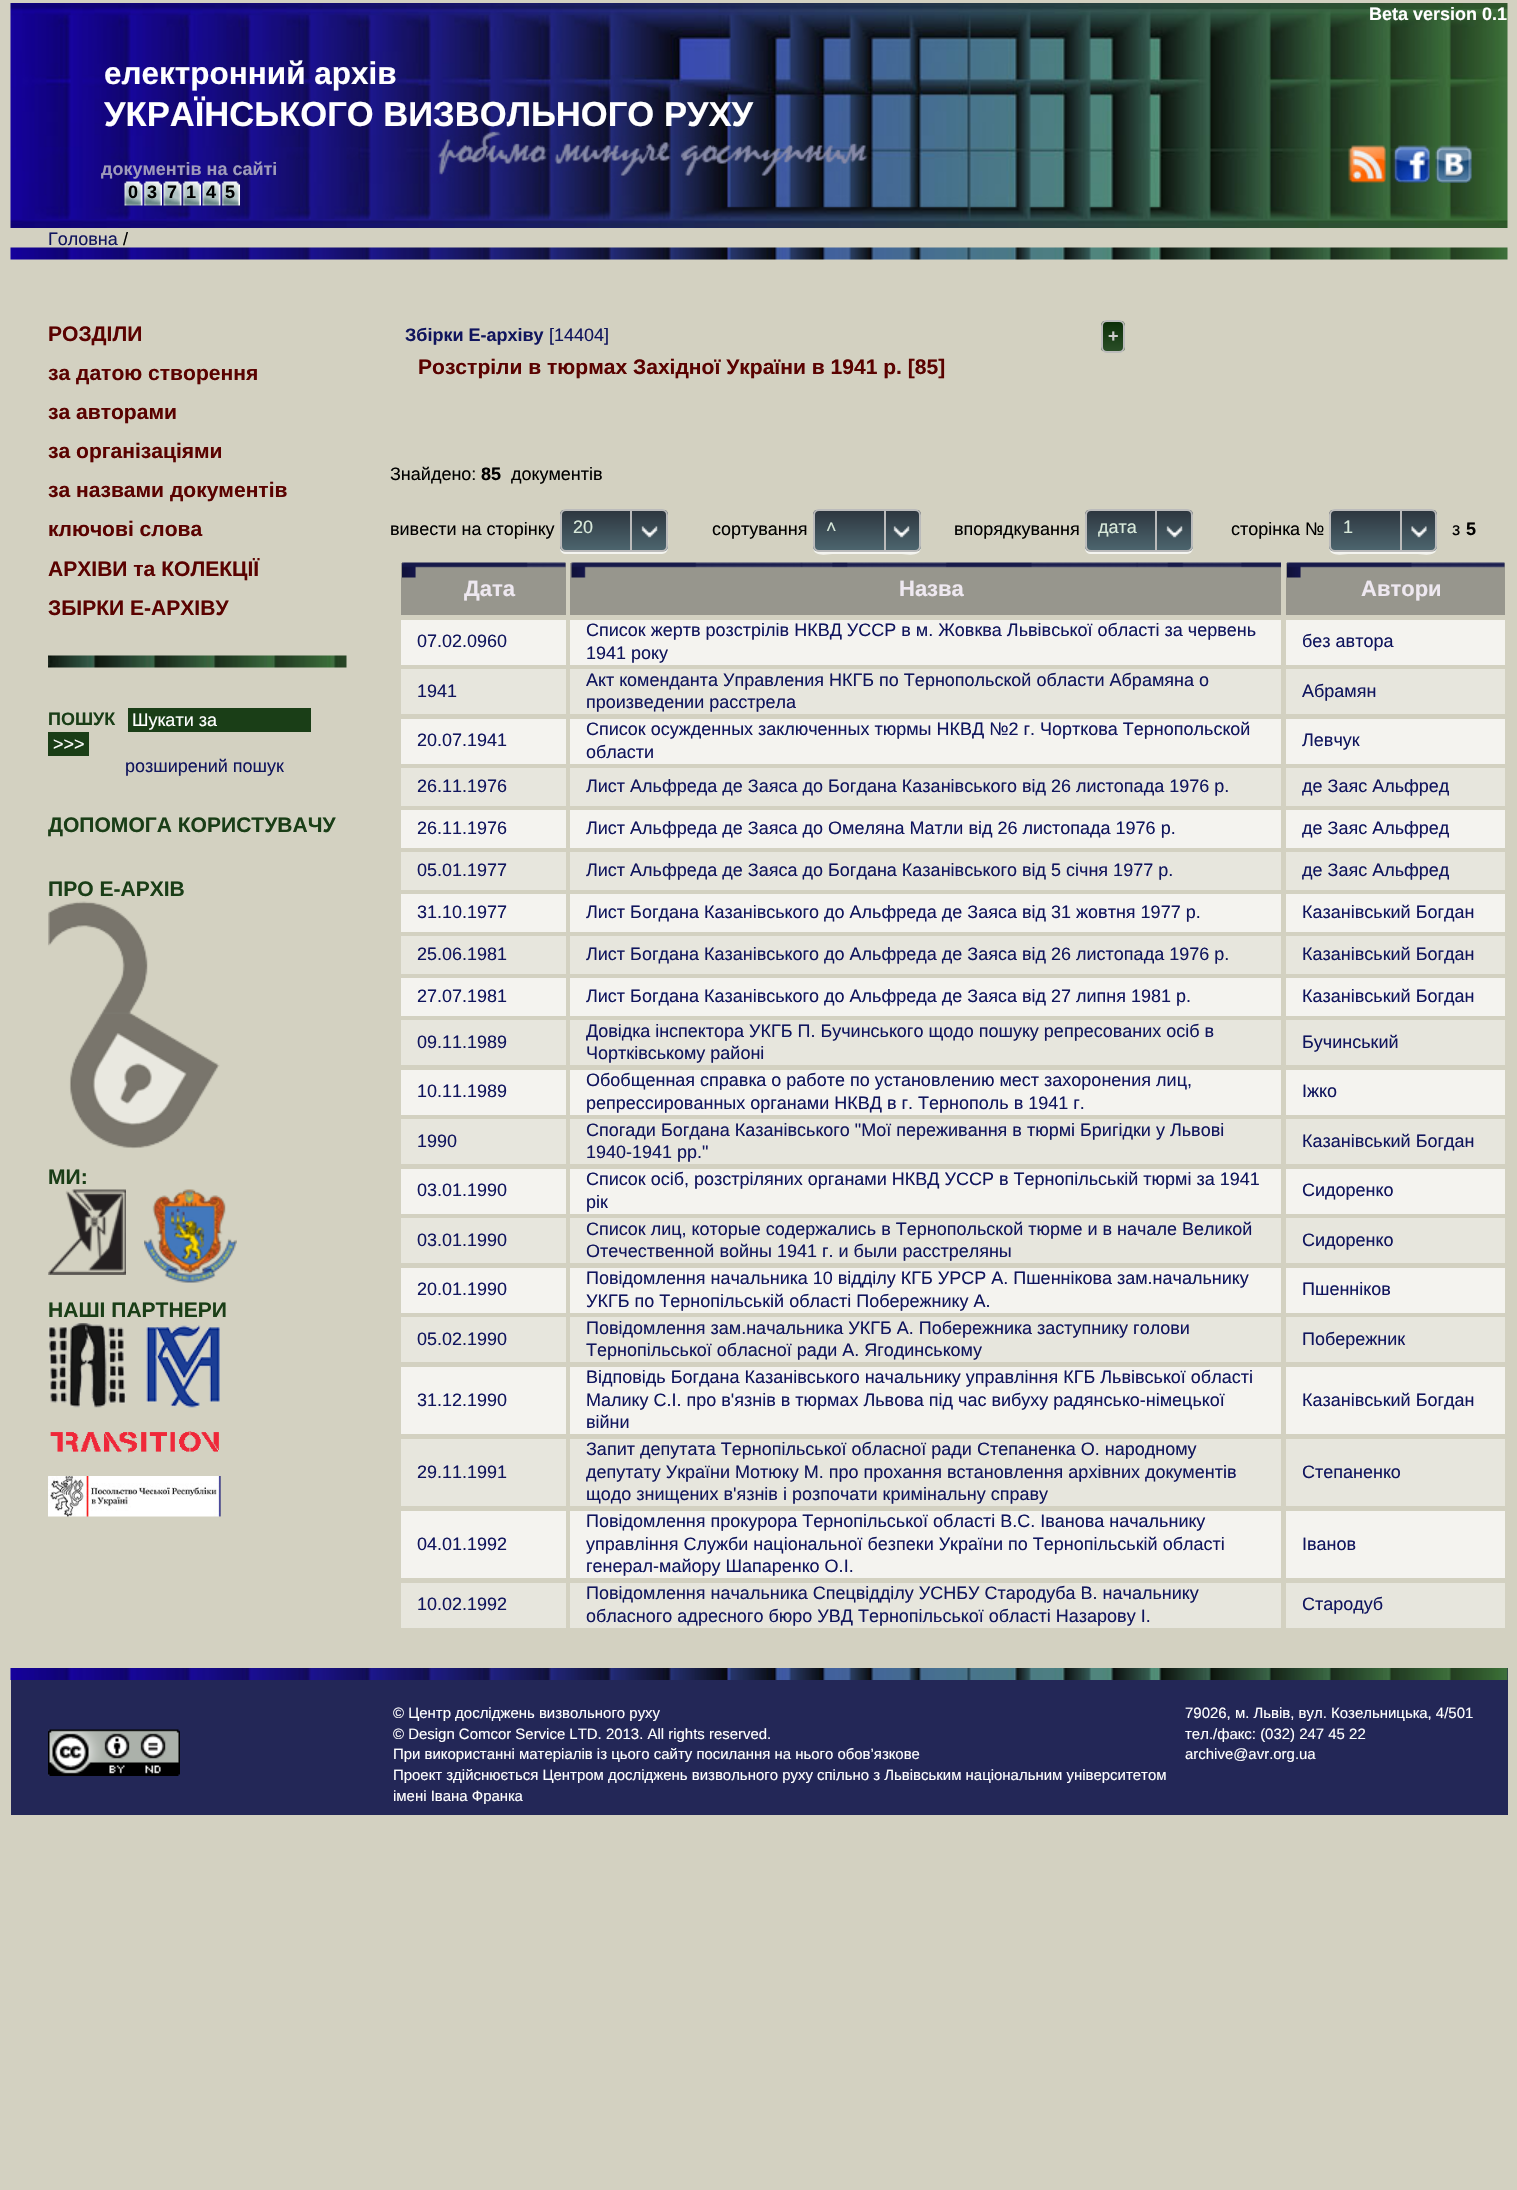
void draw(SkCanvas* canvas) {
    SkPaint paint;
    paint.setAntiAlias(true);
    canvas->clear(0xFFD3D1C1);
    canvas->drawImageRect(SkImages::DeferredFromEncodedData(SkData::MakeFromFileName("img1.png")), SkRect::MakeXYWH(10, 3, 1498, 225), SkSamplingOptions());
    SkFont font1(fontMgr->matchFamilyStyle("Liberation Sans", SkFontStyle::Bold()), 18);
    font1.setSubpixel(true);
    paint.setColor(0xFFFFFFFF);
    canvas->drawString("Beta version 0.1", 1369, 20, font1, paint);
    SkFont font2(fontMgr->matchFamilyStyle("Liberation Sans", SkFontStyle::Bold()), 31.5f);
    font2.setSubpixel(true);
    canvas->drawString("електронний архів", 104, 84, font2, paint);
    SkFont font3(fontMgr->matchFamilyStyle("Liberation Sans", SkFontStyle::Bold()), 34.6f);
    font3.setSubpixel(true);
    canvas->drawString("УКРАЇНСЬКОГО ВИЗВОЛЬНОГО РУХУ", 104, 126, font3, paint);
    paint.setColor(0xFF9F9BBA);
    canvas->drawString("документів на сайті", 101, 175, font1, paint);
    canvas->drawImageRect(SkImages::DeferredFromEncodedData(SkData::MakeFromFileName("img2.png")), SkRect::MakeXYWH(124, 181, 19, 25), SkSamplingOptions());
    paint.setColor(0xFF000000);
    canvas->drawString("0", 128, 198, font1, paint);
    canvas->drawImageRect(SkImages::DeferredFromEncodedData(SkData::MakeFromFileName("img3.png")), SkRect::MakeXYWH(143, 181, 19, 25), SkSamplingOptions());
    canvas->drawString("3", 147, 198, font1, paint);
    canvas->drawImageRect(SkImages::DeferredFromEncodedData(SkData::MakeFromFileName("img4.png")), SkRect::MakeXYWH(163, 181, 19, 25), SkSamplingOptions());
    canvas->drawString("7", 167, 198, font1, paint);
    canvas->drawImageRect(SkImages::DeferredFromEncodedData(SkData::MakeFromFileName("img5.png")), SkRect::MakeXYWH(182, 181, 19, 25), SkSamplingOptions());
    canvas->drawString("1", 186, 198, font1, paint);
    canvas->drawImageRect(SkImages::DeferredFromEncodedData(SkData::MakeFromFileName("img6.png")), SkRect::MakeXYWH(202, 181, 19, 25), SkSamplingOptions());
    canvas->drawString("4", 206, 198, font1, paint);
    canvas->drawImageRect(SkImages::DeferredFromEncodedData(SkData::MakeFromFileName("img7.png")), SkRect::MakeXYWH(221, 181, 19, 25), SkSamplingOptions());
    canvas->drawString("5", 225, 198, font1, paint);
    canvas->drawImageRect(SkImages::DeferredFromEncodedData(SkData::MakeFromFileName("img8.png")), SkRect::MakeXYWH(1348, 145, 38, 38), SkSamplingOptions());
    canvas->drawImageRect(SkImages::DeferredFromEncodedData(SkData::MakeFromFileName("img9.png")), SkRect::MakeXYWH(1393, 145, 37, 38), SkSamplingOptions());
    canvas->drawImageRect(SkImages::DeferredFromEncodedData(SkData::MakeFromFileName("img10.png")), SkRect::MakeXYWH(1435, 145, 37, 38), SkSamplingOptions());
    canvas->drawImageRect(SkImages::DeferredFromEncodedData(SkData::MakeFromFileName("img11.png")), SkRect::MakeXYWH(10, 247, 1498, 13), SkSamplingOptions());
    SkFont font4(fontMgr->matchFamilyStyle("Liberation Sans", SkFontStyle::Normal()), 18);
    font4.setSubpixel(true);
    paint.setColor(0xFF10155D);
    canvas->drawString("Головна", 48, 245, font4, paint);
    paint.setColor(0xFF000000);
    canvas->drawString("/", 123, 245, font4, paint);
    SkFont font5(fontMgr->matchFamilyStyle("Liberation Sans", SkFontStyle::Bold()), 21.05f);
    font5.setSubpixel(true);
    paint.setColor(0xFF5A0200);
    canvas->drawString("РОЗДІЛИ", 48, 341, font5, paint);
    canvas->drawString("за датою створення", 48, 380, font5, paint);
    canvas->drawString("за авторами", 48, 419, font5, paint);
    canvas->drawString("за організаціями", 48, 458, font5, paint);
    canvas->drawString("за назвами документів", 48, 497, font5, paint);
    canvas->drawString("ключові слова", 48, 536, font5, paint);
    canvas->drawString("АРХІВИ та КОЛЕКЦІЇ", 48, 576, font5, paint);
    canvas->drawString("ЗБІРКИ Е-АРХІВУ", 48, 615, font5, paint);
    canvas->drawImageRect(SkImages::DeferredFromEncodedData(SkData::MakeFromFileName("img12.png")), SkRect::MakeXYWH(48, 655, 299, 13), SkSamplingOptions());
    paint.setColor(0xFF1A3E17);
    canvas->drawString("ПОШУК", 48, 725, font1, paint);
    canvas->drawRect(SkRect::MakeXYWH(128, 708, 183, 24), paint);
    paint.setColor(0xFFFFFFFF);
    canvas->drawString("Шукати за", 132, 726, font4, paint);
    paint.setColor(0xFF1A3E17);
    canvas->drawRect(SkRect::MakeXYWH(48, 732, 41, 24), paint);
    paint.setColor(0xFFFFFFFF);
    canvas->drawString(">>>", 53, 750, font4, paint);
    paint.setColor(0xFF10155D);
    canvas->drawString("розширений пошук", 125, 772, font4, paint);
    paint.setColor(0xFF1A3E17);
    canvas->drawString("ДОПОМОГА КОРИСТУВАЧУ", 48, 832, font5, paint);
    canvas->drawString("ПРО Е-АРХІВ", 48, 896, font5, paint);
    canvas->drawImageRect(SkImages::DeferredFromEncodedData(SkData::MakeFromFileName("img13.png")), SkRect::MakeXYWH(48, 901, 172, 248), SkSamplingOptions());
    canvas->drawString("МИ:", 48, 1184, font5, paint);
    canvas->drawImageRect(SkImages::DeferredFromEncodedData(SkData::MakeFromFileName("img14.png")), SkRect::MakeXYWH(48, 1189, 78, 86), SkSamplingOptions());
    canvas->drawImageRect(SkImages::DeferredFromEncodedData(SkData::MakeFromFileName("img15.png")), SkRect::MakeXYWH(144, 1189, 93, 94), SkSamplingOptions());
    canvas->drawString("НАШІ ПАРТНЕРИ", 48, 1317, font5, paint);
    canvas->drawImageRect(SkImages::DeferredFromEncodedData(SkData::MakeFromFileName("img16.png")), SkRect::MakeXYWH(48, 1323, 78, 85), SkSamplingOptions());
    canvas->drawImageRect(SkImages::DeferredFromEncodedData(SkData::MakeFromFileName("img17.png")), SkRect::MakeXYWH(146, 1325, 74, 83), SkSamplingOptions());
    canvas->drawImageRect(SkImages::DeferredFromEncodedData(SkData::MakeFromFileName("img18.png")), SkRect::MakeXYWH(50, 1431, 169, 22), SkSamplingOptions());
    canvas->drawImageRect(SkImages::DeferredFromEncodedData(SkData::MakeFromFileName("img19.png")), SkRect::MakeXYWH(48, 1476, 173, 41), SkSamplingOptions());
    paint.setColor(0xFF10155D);
    canvas->drawString("Збірки Е-архіву", 405, 341, font1, paint);
    canvas->drawString("[14404]", 549, 341, font4, paint);
    canvas->save();
    canvas->clipPath(SkPathBuilder().moveTo(1107, 320).lineTo(1119, 320).cubicTo(1122.5f, 320, 1125, 322.5f, 1125, 326).lineTo(1125, 347).cubicTo(1125, 350.5f, 1122.5f, 353, 1119, 353).lineTo(1107, 353).cubicTo(1103.5f, 353, 1101, 350.5f, 1101, 347).lineTo(1101, 326).cubicTo(1101, 322.5f, 1103.5f, 320, 1107, 320).close().detach(), true);
    {
        const SkColor colors[] = {0xFF0A2E07, 0xFF2A4E27};
        const float stops[] = {0.01f, 1};
        const SkPoint ends[] = {{1103, 321}, {1103, 351}};
        paint.setShader(SkGradientShader::MakeLinear(ends, colors, stops, 2, SkTileMode::kClamp));
        paint.setAlpha(255);
    }
    canvas->drawRect(SkRect::MakeXYWH(1101, 321, 24, 30), paint);
    canvas->restore();
    paint.setStyle(SkPaint::kStroke_Style);
    paint.setStrokeWidth(2);
    paint.setShader(nullptr);
    paint.setColor(0xFFBBBBBB);
    canvas->drawRoundRect(SkRect::MakeXYWH(1102, 321, 22, 31), 5, 5, paint);
    paint.setStyle(SkPaint::kFill_Style);
    paint.setColor(0xFFCCCCCC);
    canvas->drawString("+", 1108, 342, font1, paint);
    paint.setColor(0xFF5A0200);
    canvas->drawString("Розстріли в тюрмах Західної України в 1941 р. [85]", 418, 374, font5, paint);
    paint.setColor(0xFF000000);
    canvas->drawString("Знайдено:", 390, 480, font4, paint);
    canvas->drawString("85", 481, 480, font1, paint);
    canvas->drawString("документів", 511, 480, font4, paint);
    canvas->drawString("вивести на сторінку", 390, 535, font4, paint);
    paint.setColor(0xFFF4F4F0);
    canvas->drawPath(SkPathBuilder().moveTo(560, 548).cubicTo(560, 552, 563, 554, 566, 554).lineTo(662, 554).cubicTo(665, 554, 668, 551, 668, 548).lineTo(668, 516).lineTo(667, 513).lineTo(668, 536).cubicTo(668, 540, 670, 552, 662, 552).lineTo(565, 552).cubicTo(563, 552, 561, 550, 560, 548).close().detach(), paint);
    canvas->save();
    canvas->clipPath(SkPathBuilder().moveTo(566, 509).lineTo(662, 509).cubicTo(665.5f, 509, 668, 511.5f, 668, 515).lineTo(668, 546).cubicTo(668, 549.5f, 665.5f, 552, 662, 552).lineTo(566, 552).cubicTo(562.5f, 552, 560, 549.5f, 560, 546).lineTo(560, 515).cubicTo(560, 511.5f, 562.5f, 509, 566, 509).close().detach(), true);
    {
        const SkColor colors[] = {0xFF2D363F, 0xFF4D666F};
        const float stops[] = {0.01f, 1};
        const SkPoint ends[] = {{561, 510}, {561, 551}};
        paint.setShader(SkGradientShader::MakeLinear(ends, colors, stops, 2, SkTileMode::kClamp));
        paint.setAlpha(255);
    }
    canvas->drawRect(SkRect::MakeXYWH(560, 510, 108, 41), paint);
    canvas->restore();
    paint.setStyle(SkPaint::kStroke_Style);
    paint.setShader(nullptr);
    paint.setColor(0xFFBBBBBB);
    canvas->drawRoundRect(SkRect::MakeXYWH(561, 510, 106, 41), 5, 5, paint);
    paint.setStyle(SkPaint::kFill_Style);
    paint.setColor(0xFFD8E9DA);
    canvas->drawString("20", 573, 533, font4, paint);
    canvas->drawImageRect(SkImages::DeferredFromEncodedData(SkData::MakeFromFileName("img20.png")), SkRect::MakeXYWH(641, 526, 17, 12), SkSamplingOptions());
    paint.setColor(0xFFBBBBBB);
    canvas->drawRect(SkRect::MakeXYWH(630, 510, 2, 41), paint);
    paint.setColor(0xFF000000);
    canvas->drawString("сортування", 712, 535, font4, paint);
    paint.setColor(0xFFF4F4F0);
    canvas->drawPath(SkPathBuilder().moveTo(813, 546).cubicTo(813, 558, 826, 554, 835, 554).lineTo(899, 554).cubicTo(908, 554, 921, 558, 921, 546).cubicTo(921, 549, 918, 552, 915, 552).lineTo(819, 552).cubicTo(816, 552, 813, 549, 813, 546).close().detach(), paint);
    canvas->save();
    canvas->clipPath(SkPathBuilder().moveTo(819, 509).lineTo(915, 509).cubicTo(918.5f, 509, 921, 511.5f, 921, 515).lineTo(921, 546).cubicTo(921, 549.5f, 918.5f, 552, 915, 552).lineTo(819, 552).cubicTo(815.5f, 552, 813, 549.5f, 813, 546).lineTo(813, 515).cubicTo(813, 511.5f, 815.5f, 509, 819, 509).close().detach(), true);
    {
        const SkColor colors[] = {0xFF2D363F, 0xFF4D666F};
        const float stops[] = {0.01f, 1};
        const SkPoint ends[] = {{815, 510}, {815, 551}};
        paint.setShader(SkGradientShader::MakeLinear(ends, colors, stops, 2, SkTileMode::kClamp));
        paint.setAlpha(255);
    }
    canvas->drawRect(SkRect::MakeXYWH(813, 510, 108, 41), paint);
    canvas->restore();
    paint.setStyle(SkPaint::kStroke_Style);
    paint.setShader(nullptr);
    paint.setColor(0xFFBBBBBB);
    canvas->drawRoundRect(SkRect::MakeXYWH(814, 510, 106, 41), 5, 5, paint);
    paint.setStyle(SkPaint::kFill_Style);
    paint.setColor(0xFFD8E9DA);
    canvas->drawString("˄", 826, 533, font4, paint);
    canvas->drawImageRect(SkImages::DeferredFromEncodedData(SkData::MakeFromFileName("img21.png")), SkRect::MakeXYWH(893, 526, 17, 12), SkSamplingOptions());
    paint.setColor(0xFFBBBBBB);
    canvas->drawRect(SkRect::MakeXYWH(884, 510, 2, 41), paint);
    paint.setColor(0xFF000000);
    canvas->drawString("впорядкування", 954, 535, font4, paint);
    paint.setColor(0xFFF4F4F0);
    canvas->drawPath(SkPathBuilder().moveTo(1085, 548).cubicTo(1085, 552, 1088, 554, 1091, 554).lineTo(1187, 554).cubicTo(1190, 554, 1193, 551, 1193, 548).lineTo(1193, 516).lineTo(1192, 513).lineTo(1192, 536).cubicTo(1192, 540, 1195, 552, 1186, 552).lineTo(1089, 552).cubicTo(1087, 551, 1086, 550, 1085, 548).close().detach(), paint);
    canvas->save();
    canvas->clipPath(SkPathBuilder().moveTo(1091, 509).lineTo(1187, 509).cubicTo(1190.5f, 509, 1193, 511.5f, 1193, 515).lineTo(1193, 546).cubicTo(1193, 549.5f, 1190.5f, 552, 1187, 552).lineTo(1091, 552).cubicTo(1087.5f, 552, 1085, 549.5f, 1085, 546).lineTo(1085, 515).cubicTo(1085, 511.5f, 1087.5f, 509, 1091, 509).close().detach(), true);
    {
        const SkColor colors[] = {0xFF2D363F, 0xFF4D666F};
        const float stops[] = {0.01f, 1};
        const SkPoint ends[] = {{1086, 510}, {1086, 551}};
        paint.setShader(SkGradientShader::MakeLinear(ends, colors, stops, 2, SkTileMode::kClamp));
        paint.setAlpha(255);
    }
    canvas->drawRect(SkRect::MakeXYWH(1085, 510, 108, 41), paint);
    canvas->restore();
    paint.setStyle(SkPaint::kStroke_Style);
    paint.setShader(nullptr);
    paint.setColor(0xFFBBBBBB);
    canvas->drawRoundRect(SkRect::MakeXYWH(1086, 510, 106, 41), 5, 5, paint);
    paint.setStyle(SkPaint::kFill_Style);
    paint.setColor(0xFFD8E9DA);
    canvas->drawString("дата", 1098, 533, font4, paint);
    canvas->drawImageRect(SkImages::DeferredFromEncodedData(SkData::MakeFromFileName("img20.png")), SkRect::MakeXYWH(1166, 526, 17, 12), SkSamplingOptions());
    paint.setColor(0xFFBBBBBB);
    canvas->drawRect(SkRect::MakeXYWH(1155, 510, 2, 41), paint);
    paint.setColor(0xFF000000);
    canvas->drawString("сторінка №", 1231, 535, font4, paint);
    paint.setColor(0xFFF4F4F0);
    canvas->drawPath(SkPathBuilder().moveTo(1329, 546).cubicTo(1329, 558, 1342, 554, 1351, 554).lineTo(1415, 554).cubicTo(1424, 554, 1437, 558, 1437, 546).cubicTo(1437, 549, 1434, 552, 1431, 552).lineTo(1335, 552).cubicTo(1332, 552, 1329, 549, 1329, 546).close().detach(), paint);
    canvas->save();
    canvas->clipPath(SkPathBuilder().moveTo(1335, 509).lineTo(1431, 509).cubicTo(1434.5f, 509, 1437, 511.5f, 1437, 515).lineTo(1437, 546).cubicTo(1437, 549.5f, 1434.5f, 552, 1431, 552).lineTo(1335, 552).cubicTo(1331.5f, 552, 1329, 549.5f, 1329, 546).lineTo(1329, 515).cubicTo(1329, 511.5f, 1331.5f, 509, 1335, 509).close().detach(), true);
    {
        const SkColor colors[] = {0xFF2D363F, 0xFF4D666F};
        const float stops[] = {0.01f, 1};
        const SkPoint ends[] = {{1331, 510}, {1331, 551}};
        paint.setShader(SkGradientShader::MakeLinear(ends, colors, stops, 2, SkTileMode::kClamp));
        paint.setAlpha(255);
    }
    canvas->drawRect(SkRect::MakeXYWH(1329, 510, 108, 41), paint);
    canvas->restore();
    paint.setStyle(SkPaint::kStroke_Style);
    paint.setShader(nullptr);
    paint.setColor(0xFFBBBBBB);
    canvas->drawRoundRect(SkRect::MakeXYWH(1330, 510, 106, 41), 5, 5, paint);
    paint.setStyle(SkPaint::kFill_Style);
    paint.setColor(0xFFD8E9DA);
    canvas->drawString("1", 1343, 533, font4, paint);
    canvas->drawImageRect(SkImages::DeferredFromEncodedData(SkData::MakeFromFileName("img22.png")), SkRect::MakeXYWH(1411, 526, 16, 12), SkSamplingOptions());
    paint.setColor(0xFFBBBBBB);
    canvas->drawRect(SkRect::MakeXYWH(1400, 510, 2, 41), paint);
    paint.setColor(0xFF000000);
    canvas->drawString("з", 1452, 535, font4, paint);
    canvas->drawString("5", 1466, 535, font1, paint);
    paint.setColor(0xFF97968D);
    canvas->drawRect(SkRect::MakeXYWH(401, 563, 165, 52), paint);
    canvas->drawImageRect(SkImages::DeferredFromEncodedData(SkData::MakeFromFileName("img23.png")), SkRect::MakeXYWH(402, 562, 164, 16), SkSamplingOptions());
    SkFont font6(fontMgr->matchFamilyStyle("Liberation Sans", SkFontStyle::Bold()), 22);
    font6.setSubpixel(true);
    paint.setColor(0xFFEEE8F0);
    canvas->drawString("Дата", 464, 596, font6, paint);
    paint.setColor(0xFF97968D);
    canvas->drawRect(SkRect::MakeXYWH(570, 563, 711, 52), paint);
    canvas->drawImageRect(SkImages::DeferredFromEncodedData(SkData::MakeFromFileName("img24.png")), SkRect::MakeXYWH(571, 562, 710, 16), SkSamplingOptions());
    paint.setColor(0xFFEEE8F0);
    canvas->drawString("Назва", 899, 596, font6, paint);
    paint.setColor(0xFF97968D);
    canvas->drawRect(SkRect::MakeXYWH(1286, 563, 219, 52), paint);
    canvas->drawImageRect(SkImages::DeferredFromEncodedData(SkData::MakeFromFileName("img25.png")), SkRect::MakeXYWH(1287, 562, 218, 16), SkSamplingOptions());
    paint.setColor(0xFFEEE8F0);
    canvas->drawString("Автори", 1361, 596, font6, paint);
    paint.setColor(0xFFF4F3EF);
    canvas->drawRect(SkRect::MakeXYWH(401, 620, 165, 45), paint);
    paint.setColor(0xFF10155D);
    canvas->drawString("07.02.0960", 417, 647, font4, paint);
    paint.setColor(0xFFF4F3EF);
    canvas->drawRect(SkRect::MakeXYWH(570, 620, 711, 45), paint);
    paint.setColor(0xFF10155D);
    canvas->drawString("Список жертв розстрілів НКВД УССР в м. Жовква Львівської області за червень", 586, 636, font4, paint);
    canvas->drawString("1941 року", 586, 659, font4, paint);
    paint.setColor(0xFFF4F3EF);
    canvas->drawRect(SkRect::MakeXYWH(1286, 620, 219, 45), paint);
    paint.setColor(0xFF10155D);
    canvas->drawString("без автора", 1302, 647, font4, paint);
    paint.setColor(0xFFE7E6DD);
    canvas->drawRect(SkRect::MakeXYWH(401, 669, 165, 45), paint);
    paint.setColor(0xFF10155D);
    canvas->drawString("1941", 417, 697, font4, paint);
    paint.setColor(0xFFE7E6DD);
    canvas->drawRect(SkRect::MakeXYWH(570, 669, 711, 45), paint);
    paint.setColor(0xFF10155D);
    canvas->drawString("Акт коменданта Управления НКГБ по Тернопольской области Абрамяна о", 586, 686, font4, paint);
    canvas->drawString("произведении расстрела", 586, 708, font4, paint);
    paint.setColor(0xFFE7E6DD);
    canvas->drawRect(SkRect::MakeXYWH(1286, 669, 219, 45), paint);
    paint.setColor(0xFF10155D);
    canvas->drawString("Абрамян", 1302, 697, font4, paint);
    paint.setColor(0xFFF4F3EF);
    canvas->drawRect(SkRect::MakeXYWH(401, 719, 165, 45), paint);
    paint.setColor(0xFF10155D);
    canvas->drawString("20.07.1941", 417, 746, font4, paint);
    paint.setColor(0xFFF4F3EF);
    canvas->drawRect(SkRect::MakeXYWH(570, 719, 711, 45), paint);
    paint.setColor(0xFF10155D);
    canvas->drawString("Список осужденных заключенных тюрмы НКВД №2 г. Чорткова Тернопольской", 586, 735, font4, paint);
    canvas->drawString("области", 586, 758, font4, paint);
    paint.setColor(0xFFF4F3EF);
    canvas->drawRect(SkRect::MakeXYWH(1286, 719, 219, 45), paint);
    paint.setColor(0xFF10155D);
    canvas->drawString("Левчук", 1302, 746, font4, paint);
    paint.setColor(0xFFE7E6DD);
    canvas->drawRect(SkRect::MakeXYWH(401, 768, 165, 38), paint);
    paint.setColor(0xFF10155D);
    canvas->drawString("26.11.1976", 417, 792, font4, paint);
    paint.setColor(0xFFE7E6DD);
    canvas->drawRect(SkRect::MakeXYWH(570, 768, 711, 38), paint);
    paint.setColor(0xFF10155D);
    canvas->drawString("Лист Альфреда де Заяса до Богдана Казанівського від 26 листопада 1976 р.", 586, 792, font4, paint);
    paint.setColor(0xFFE7E6DD);
    canvas->drawRect(SkRect::MakeXYWH(1286, 768, 219, 38), paint);
    paint.setColor(0xFF10155D);
    canvas->drawString("де Заяс Альфред", 1302, 792, font4, paint);
    paint.setColor(0xFFF4F3EF);
    canvas->drawRect(SkRect::MakeXYWH(401, 810, 165, 38), paint);
    paint.setColor(0xFF10155D);
    canvas->drawString("26.11.1976", 417, 834, font4, paint);
    paint.setColor(0xFFF4F3EF);
    canvas->drawRect(SkRect::MakeXYWH(570, 810, 711, 38), paint);
    paint.setColor(0xFF10155D);
    canvas->drawString("Лист Альфреда де Заяса до Омеляна Матли від 26 листопада 1976 р.", 586, 834, font4, paint);
    paint.setColor(0xFFF4F3EF);
    canvas->drawRect(SkRect::MakeXYWH(1286, 810, 219, 38), paint);
    paint.setColor(0xFF10155D);
    canvas->drawString("де Заяс Альфред", 1302, 834, font4, paint);
    paint.setColor(0xFFE7E6DD);
    canvas->drawRect(SkRect::MakeXYWH(401, 852, 165, 38), paint);
    paint.setColor(0xFF10155D);
    canvas->drawString("05.01.1977", 417, 876, font4, paint);
    paint.setColor(0xFFE7E6DD);
    canvas->drawRect(SkRect::MakeXYWH(570, 852, 711, 38), paint);
    paint.setColor(0xFF10155D);
    canvas->drawString("Лист Альфреда де Заяса до Богдана Казанівського від 5 січня 1977 р.", 586, 876, font4, paint);
    paint.setColor(0xFFE7E6DD);
    canvas->drawRect(SkRect::MakeXYWH(1286, 852, 219, 38), paint);
    paint.setColor(0xFF10155D);
    canvas->drawString("де Заяс Альфред", 1302, 876, font4, paint);
    paint.setColor(0xFFF4F3EF);
    canvas->drawRect(SkRect::MakeXYWH(401, 894, 165, 38), paint);
    paint.setColor(0xFF10155D);
    canvas->drawString("31.10.1977", 417, 918, font4, paint);
    paint.setColor(0xFFF4F3EF);
    canvas->drawRect(SkRect::MakeXYWH(570, 894, 711, 38), paint);
    paint.setColor(0xFF10155D);
    canvas->drawString("Лист Богдана Казанівського до Альфреда де Заяса від 31 жовтня 1977 р.", 586, 918, font4, paint);
    paint.setColor(0xFFF4F3EF);
    canvas->drawRect(SkRect::MakeXYWH(1286, 894, 219, 38), paint);
    paint.setColor(0xFF10155D);
    canvas->drawString("Казанівський Богдан", 1302, 918, font4, paint);
    paint.setColor(0xFFE7E6DD);
    canvas->drawRect(SkRect::MakeXYWH(401, 936, 165, 38), paint);
    paint.setColor(0xFF10155D);
    canvas->drawString("25.06.1981", 417, 960, font4, paint);
    paint.setColor(0xFFE7E6DD);
    canvas->drawRect(SkRect::MakeXYWH(570, 936, 711, 38), paint);
    paint.setColor(0xFF10155D);
    canvas->drawString("Лист Богдана Казанівського до Альфреда де Заяса від 26 листопада 1976 р.", 586, 960, font4, paint);
    paint.setColor(0xFFE7E6DD);
    canvas->drawRect(SkRect::MakeXYWH(1286, 936, 219, 38), paint);
    paint.setColor(0xFF10155D);
    canvas->drawString("Казанівський Богдан", 1302, 960, font4, paint);
    paint.setColor(0xFFF4F3EF);
    canvas->drawRect(SkRect::MakeXYWH(401, 978, 165, 38), paint);
    paint.setColor(0xFF10155D);
    canvas->drawString("27.07.1981", 417, 1002, font4, paint);
    paint.setColor(0xFFF4F3EF);
    canvas->drawRect(SkRect::MakeXYWH(570, 978, 711, 38), paint);
    paint.setColor(0xFF10155D);
    canvas->drawString("Лист Богдана Казанівського до Альфреда де Заяса від 27 липня 1981 р.", 586, 1002, font4, paint);
    paint.setColor(0xFFF4F3EF);
    canvas->drawRect(SkRect::MakeXYWH(1286, 978, 219, 38), paint);
    paint.setColor(0xFF10155D);
    canvas->drawString("Казанівський Богдан", 1302, 1002, font4, paint);
    paint.setColor(0xFFE7E6DD);
    canvas->drawRect(SkRect::MakeXYWH(401, 1020, 165, 45), paint);
    paint.setColor(0xFF10155D);
    canvas->drawString("09.11.1989", 417, 1048, font4, paint);
    paint.setColor(0xFFE7E6DD);
    canvas->drawRect(SkRect::MakeXYWH(570, 1020, 711, 45), paint);
    paint.setColor(0xFF10155D);
    canvas->drawString("Довідка інспектора УКГБ П. Бучинського щодо пошуку репресованих осіб в", 586, 1037, font4, paint);
    canvas->drawString("Чортківському районі", 586, 1059, font4, paint);
    paint.setColor(0xFFE7E6DD);
    canvas->drawRect(SkRect::MakeXYWH(1286, 1020, 219, 45), paint);
    paint.setColor(0xFF10155D);
    canvas->drawString("Бучинський", 1302, 1048, font4, paint);
    paint.setColor(0xFFF4F3EF);
    canvas->drawRect(SkRect::MakeXYWH(401, 1070, 165, 45), paint);
    paint.setColor(0xFF10155D);
    canvas->drawString("10.11.1989", 417, 1097, font4, paint);
    paint.setColor(0xFFF4F3EF);
    canvas->drawRect(SkRect::MakeXYWH(570, 1070, 711, 45), paint);
    paint.setColor(0xFF10155D);
    canvas->drawString("Обобщенная справка о работе по установлению мест захоронения лиц,", 586, 1086, font4, paint);
    canvas->drawString("репрессированных органами НКВД в г. Тернополь в 1941 г.", 586, 1109, font4, paint);
    paint.setColor(0xFFF4F3EF);
    canvas->drawRect(SkRect::MakeXYWH(1286, 1070, 219, 45), paint);
    paint.setColor(0xFF10155D);
    canvas->drawString("Іжко", 1302, 1097, font4, paint);
    paint.setColor(0xFFE7E6DD);
    canvas->drawRect(SkRect::MakeXYWH(401, 1119, 165, 45), paint);
    paint.setColor(0xFF10155D);
    canvas->drawString("1990", 417, 1147, font4, paint);
    paint.setColor(0xFFE7E6DD);
    canvas->drawRect(SkRect::MakeXYWH(570, 1119, 711, 45), paint);
    paint.setColor(0xFF10155D);
    canvas->drawString("Спогади Богдана Казанівського \"Мої переживання в тюрмі Бригідки у Львові", 586, 1136, font4, paint);
    canvas->drawString("1940-1941 рр.\"", 586, 1158, font4, paint);
    paint.setColor(0xFFE7E6DD);
    canvas->drawRect(SkRect::MakeXYWH(1286, 1119, 219, 45), paint);
    paint.setColor(0xFF10155D);
    canvas->drawString("Казанівський Богдан", 1302, 1147, font4, paint);
    paint.setColor(0xFFF4F3EF);
    canvas->drawRect(SkRect::MakeXYWH(401, 1169, 165, 45), paint);
    paint.setColor(0xFF10155D);
    canvas->drawString("03.01.1990", 417, 1196, font4, paint);
    paint.setColor(0xFFF4F3EF);
    canvas->drawRect(SkRect::MakeXYWH(570, 1169, 711, 45), paint);
    paint.setColor(0xFF10155D);
    canvas->drawString("Список осіб, розстріляних органами НКВД УССР в Тернопільській тюрмі за 1941", 586, 1185, font4, paint);
    canvas->drawString("рік", 586, 1208, font4, paint);
    paint.setColor(0xFFF4F3EF);
    canvas->drawRect(SkRect::MakeXYWH(1286, 1169, 219, 45), paint);
    paint.setColor(0xFF10155D);
    canvas->drawString("Сидоренко", 1302, 1196, font4, paint);
    paint.setColor(0xFFE7E6DD);
    canvas->drawRect(SkRect::MakeXYWH(401, 1218, 165, 45), paint);
    paint.setColor(0xFF10155D);
    canvas->drawString("03.01.1990", 417, 1246, font4, paint);
    paint.setColor(0xFFE7E6DD);
    canvas->drawRect(SkRect::MakeXYWH(570, 1218, 711, 45), paint);
    paint.setColor(0xFF10155D);
    canvas->drawString("Список лиц, которые содержались в Тернопольской тюрме и в начале Великой", 586, 1235, font4, paint);
    canvas->drawString("Отечественной войны 1941 г. и были расстреляны", 586, 1257, font4, paint);
    paint.setColor(0xFFE7E6DD);
    canvas->drawRect(SkRect::MakeXYWH(1286, 1218, 219, 45), paint);
    paint.setColor(0xFF10155D);
    canvas->drawString("Сидоренко", 1302, 1246, font4, paint);
    paint.setColor(0xFFF4F3EF);
    canvas->drawRect(SkRect::MakeXYWH(401, 1268, 165, 45), paint);
    paint.setColor(0xFF10155D);
    canvas->drawString("20.01.1990", 417, 1295, font4, paint);
    paint.setColor(0xFFF4F3EF);
    canvas->drawRect(SkRect::MakeXYWH(570, 1268, 711, 45), paint);
    paint.setColor(0xFF10155D);
    canvas->drawString("Повідомлення начальника 10 відділу КГБ УРСР А. Пшеннікова зам.начальнику", 586, 1284, font4, paint);
    canvas->drawString("УКГБ по Тернопільській області Побережнику А.", 586, 1307, font4, paint);
    paint.setColor(0xFFF4F3EF);
    canvas->drawRect(SkRect::MakeXYWH(1286, 1268, 219, 45), paint);
    paint.setColor(0xFF10155D);
    canvas->drawString("Пшенніков", 1302, 1295, font4, paint);
    paint.setColor(0xFFE7E6DD);
    canvas->drawRect(SkRect::MakeXYWH(401, 1317, 165, 45), paint);
    paint.setColor(0xFF10155D);
    canvas->drawString("05.02.1990", 417, 1345, font4, paint);
    paint.setColor(0xFFE7E6DD);
    canvas->drawRect(SkRect::MakeXYWH(570, 1317, 711, 45), paint);
    paint.setColor(0xFF10155D);
    canvas->drawString("Повідомлення зам.начальника УКГБ А. Побережника заступнику голови", 586, 1334, font4, paint);
    canvas->drawString("Тернопільської обласної ради А. Ягодинському", 586, 1356, font4, paint);
    paint.setColor(0xFFE7E6DD);
    canvas->drawRect(SkRect::MakeXYWH(1286, 1317, 219, 45), paint);
    paint.setColor(0xFF10155D);
    canvas->drawString("Побережник", 1302, 1345, font4, paint);
    paint.setColor(0xFFF4F3EF);
    canvas->drawRect(SkRect::MakeXYWH(401, 1367, 165, 67), paint);
    paint.setColor(0xFF10155D);
    canvas->drawString("31.12.1990", 417, 1406, font4, paint);
    paint.setColor(0xFFF4F3EF);
    canvas->drawRect(SkRect::MakeXYWH(570, 1367, 711, 67), paint);
    paint.setColor(0xFF10155D);
    canvas->drawString("Відповідь Богдана Казанівського начальнику управління КГБ Львівської області", 586, 1383, font4, paint);
    canvas->drawString("Малику С.І. про в'язнів в тюрмах Львова під час вибуху радянсько-німецької", 586, 1406, font4, paint);
    canvas->drawString("війни", 586, 1428, font4, paint);
    paint.setColor(0xFFF4F3EF);
    canvas->drawRect(SkRect::MakeXYWH(1286, 1367, 219, 67), paint);
    paint.setColor(0xFF10155D);
    canvas->drawString("Казанівський Богдан", 1302, 1406, font4, paint);
    paint.setColor(0xFFE7E6DD);
    canvas->drawRect(SkRect::MakeXYWH(401, 1439, 165, 67), paint);
    paint.setColor(0xFF10155D);
    canvas->drawString("29.11.1991", 417, 1478, font4, paint);
    paint.setColor(0xFFE7E6DD);
    canvas->drawRect(SkRect::MakeXYWH(570, 1439, 711, 67), paint);
    paint.setColor(0xFF10155D);
    canvas->drawString("Запит депутата Тернопільської обласної ради Степаненка О. народному", 586, 1455, font4, paint);
    canvas->drawString("депутату України Мотюку М. про прохання встановлення архівних документів", 586, 1478, font4, paint);
    canvas->drawString("щодо знищених в'язнів і розпочати кримінальну справу", 586, 1500, font4, paint);
    paint.setColor(0xFFE7E6DD);
    canvas->drawRect(SkRect::MakeXYWH(1286, 1439, 219, 67), paint);
    paint.setColor(0xFF10155D);
    canvas->drawString("Степаненко", 1302, 1478, font4, paint);
    paint.setColor(0xFFF4F3EF);
    canvas->drawRect(SkRect::MakeXYWH(401, 1511, 165, 67), paint);
    paint.setColor(0xFF10155D);
    canvas->drawString("04.01.1992", 417, 1550, font4, paint);
    paint.setColor(0xFFF4F3EF);
    canvas->drawRect(SkRect::MakeXYWH(570, 1511, 711, 67), paint);
    paint.setColor(0xFF10155D);
    canvas->drawString("Повідомлення прокурора Тернопільської області В.С. Іванова начальнику", 586, 1527, font4, paint);
    canvas->drawString("управління Служби національної безпеки України по Тернопільській області", 586, 1550, font4, paint);
    canvas->drawString("генерал-майору Шапаренко О.І.", 586, 1572, font4, paint);
    paint.setColor(0xFFF4F3EF);
    canvas->drawRect(SkRect::MakeXYWH(1286, 1511, 219, 67), paint);
    paint.setColor(0xFF10155D);
    canvas->drawString("Іванов", 1302, 1550, font4, paint);
    paint.setColor(0xFFE7E6DD);
    canvas->drawRect(SkRect::MakeXYWH(401, 1583, 165, 45), paint);
    paint.setColor(0xFF10155D);
    canvas->drawString("10.02.1992", 417, 1610, font4, paint);
    paint.setColor(0xFFE7E6DD);
    canvas->drawRect(SkRect::MakeXYWH(570, 1583, 711, 45), paint);
    paint.setColor(0xFF10155D);
    canvas->drawString("Повідомлення начальника Спецвідділу УСНБУ Стародуба В. начальнику", 586, 1599, font4, paint);
    canvas->drawString("обласного адресного бюро УВД Тернопільської області Назарову І.", 586, 1622, font4, paint);
    paint.setColor(0xFFE7E6DD);
    canvas->drawRect(SkRect::MakeXYWH(1286, 1583, 219, 45), paint);
    paint.setColor(0xFF10155D);
    canvas->drawString("Стародуб", 1302, 1610, font4, paint);
    paint.setColor(0xFF232757);
    canvas->drawRect(SkRect::MakeXYWH(11, 1668, 1497, 147), paint);
    canvas->drawImageRect(SkImages::DeferredFromEncodedData(SkData::MakeFromFileName("img26.png")), SkRect::MakeXYWH(10, 1668, 1498, 12), SkSamplingOptions());
    canvas->drawImageRect(SkImages::DeferredFromEncodedData(SkData::MakeFromFileName("img27.png")), SkRect::MakeXYWH(48, 1729, 132, 47), SkSamplingOptions());
    SkFont font7(fontMgr->matchFamilyStyle("Liberation Sans", SkFontStyle::Normal()), 14.95f);
    font7.setSubpixel(true);
    paint.setColor(0xFFFFFFFF);
    canvas->drawString("© Центр досліджень визвольного руху", 393, 1718, font7, paint);
    canvas->drawString("© Design Comcor Service LTD. 2013. All rights reserved.", 393, 1739, font7, paint);
    canvas->drawString("При використанні матеріалів із цього сайту посилання на нього обов’язкове", 393, 1759, font7, paint);
    canvas->drawString("Проект здійснюється Центром досліджень визвольного руху спільно з Львівським національним університетом", 393, 1780, font7, paint);
    canvas->drawString("імені Івана Франка", 393, 1801, font7, paint);
    canvas->drawString("79026, м. Львів, вул. Козельницька, 4/501", 1185, 1718, font7, paint);
    canvas->drawString("тел./факс: (032) 247 45 22", 1185, 1739, font7, paint);
    canvas->drawString("archive@avr.org.ua", 1185, 1759, font7, paint);
}
